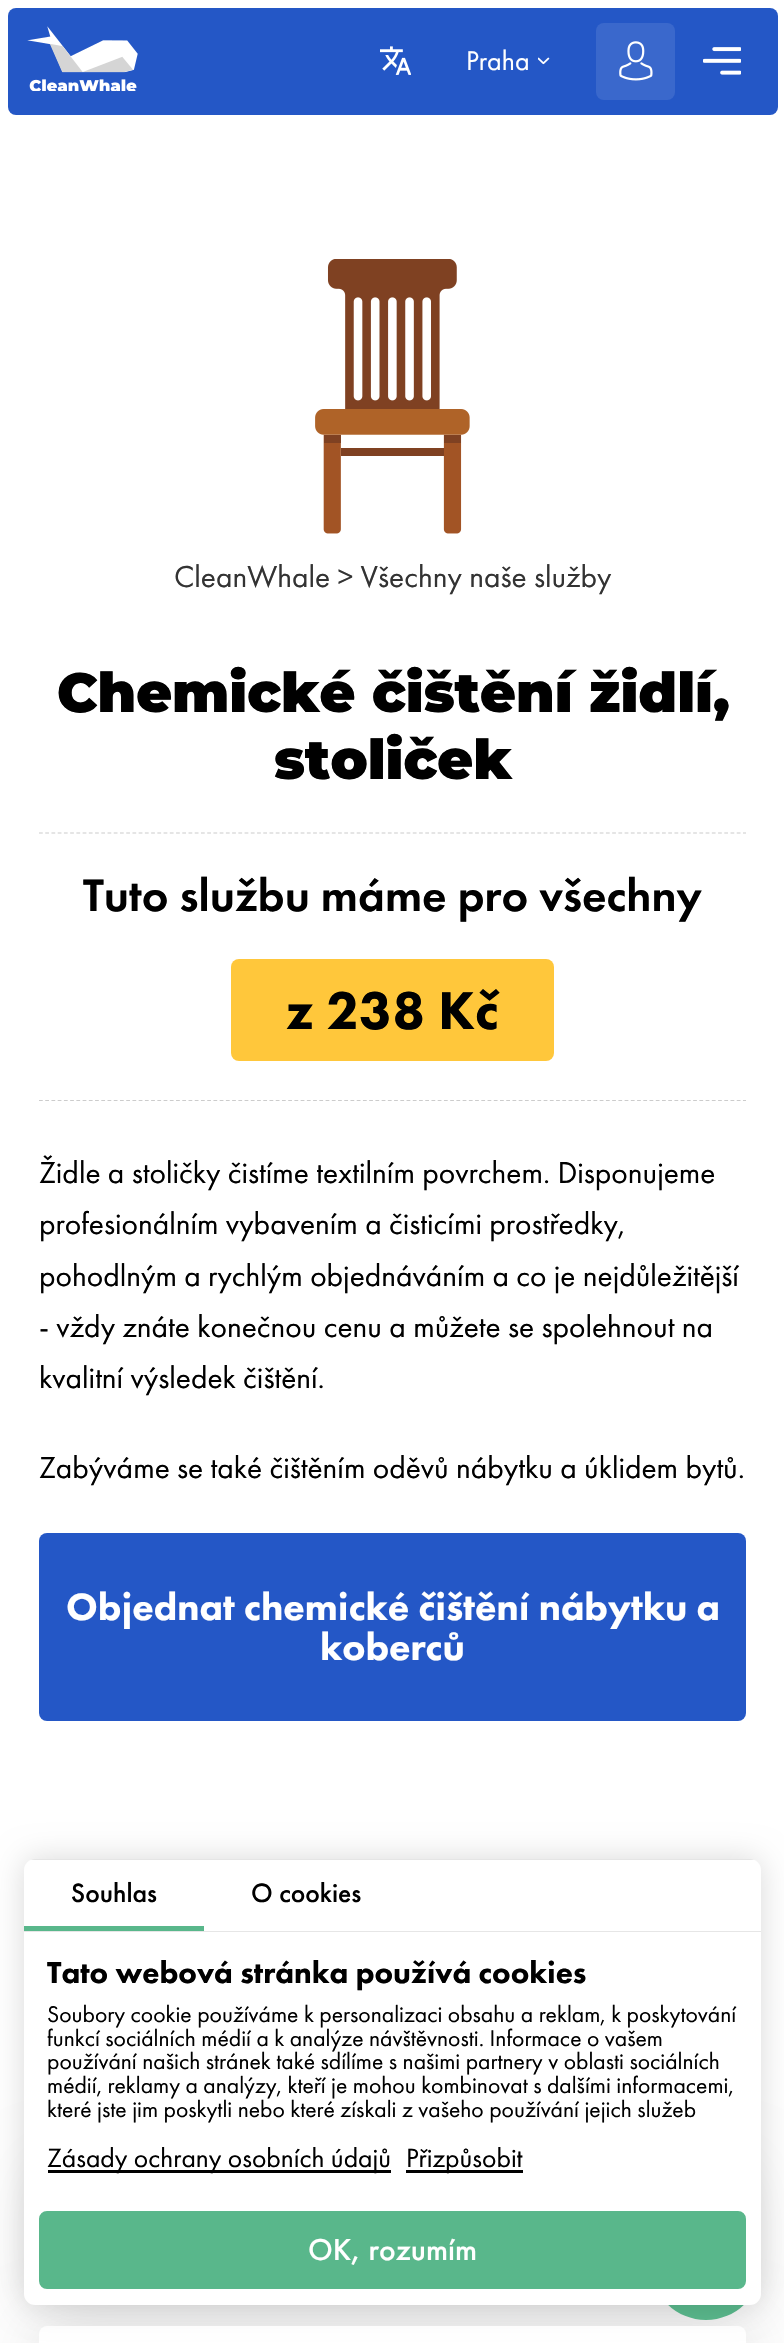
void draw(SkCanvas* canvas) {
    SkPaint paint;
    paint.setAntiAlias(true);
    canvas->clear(0xFFFFFFFF);
    paint.setColor(0xFF2457C6);
    canvas->drawRoundRect(SkRect::MakeXYWH(8, 8, 770, 107), 8, 8, paint);
    canvas->drawImageRect(SkImages::DeferredFromEncodedData(SkData::MakeFromFileName("img1.png")), SkRect::MakeXYWH(27, 26, 111, 65), SkSamplingOptions());
    canvas->drawImageRect(SkImages::DeferredFromEncodedData(SkData::MakeFromFileName("img2.png")), SkRect::MakeXYWH(380, 46, 31, 29), SkSamplingOptions());
    SkFont font1(fontMgr->matchFamilyStyle("Futura PT", SkFontStyle::Normal()), 28);
    font1.setSubpixel(true);
    paint.setColor(0xFFFFFFFF);
    canvas->drawString("Praha", 466, 70, font1, paint);
    canvas->drawImageRect(SkImages::DeferredFromEncodedData(SkData::MakeFromFileName("img3.png")), SkRect::MakeXYWH(538, 57, 12, 8), SkSamplingOptions());
    paint.setColor(0xFF3A68CC);
    canvas->drawRoundRect(SkRect::MakeXYWH(596, 23, 79, 77), 8, 8, paint);
    canvas->drawImageRect(SkImages::DeferredFromEncodedData(SkData::MakeFromFileName("img4.png")), SkRect::MakeXYWH(619, 41, 34, 40), SkSamplingOptions());
    canvas->drawImageRect(SkImages::DeferredFromEncodedData(SkData::MakeFromFileName("img5.png")), SkRect::MakeXYWH(703, 47, 38, 28), SkSamplingOptions());
    canvas->drawImageRect(SkImages::DeferredFromEncodedData(SkData::MakeFromFileName("img6.png")), SkRect::MakeXYWH(315, 259, 155, 275), SkSamplingOptions());
    SkFont font2(fontMgr->matchFamilyStyle("Futura PT", SkFontStyle::Normal()), 31.4f);
    font2.setSubpixel(true);
    paint.setColor(0xFF333333);
    canvas->drawString("CleanWhale > Všechny naše služby", 174, 587, font2, paint);
    SkFont font3(fontMgr->matchFamilyStyle("Montserrat", SkFontStyle(900, SkFontStyle::kNormal_Width, SkFontStyle::kUpright_Slant)), 55);
    font3.setSubpixel(true);
    paint.setColor(0xFF000000);
    canvas->drawString("Chemické čištění židlí,", 57, 712, font3, paint);
    canvas->drawString("stoliček", 274, 779, font3, paint);
    paint.setStyle(SkPaint::kStroke_Style);
    paint.setStrokeWidth(1.2f);
    paint.setColor(0xFFCCCCCC);
    paint.setPathEffect(SkDashPathEffect::Make({{3.75f, 2.48f}}, 0));
    canvas->drawPath(SkPathBuilder().moveTo(39, 833).lineTo(746, 833).detach(), paint);
    paint.setPathEffect(nullptr);
    paint.setPathEffect(SkDashPathEffect::Make({{3.75f, 2.48f}}, 0));
    canvas->drawPath(SkPathBuilder().moveTo(39, 1100.5f).lineTo(746, 1100.5f).detach(), paint);
    paint.setPathEffect(nullptr);
    SkFont font4(fontMgr->matchFamilyStyle("Futura PT", SkFontStyle(500, SkFontStyle::kNormal_Width, SkFontStyle::kUpright_Slant)), 47.1f);
    font4.setSubpixel(true);
    paint.setStyle(SkPaint::kFill_Style);
    paint.setColor(0xFF000000);
    canvas->drawString("Tuto službu máme pro všechny", 83, 911, font4, paint);
    paint.setColor(0xFFFFC73B);
    canvas->drawRoundRect(SkRect::MakeXYWH(231, 959, 323, 102), 8, 8, paint);
    SkFont font5(fontMgr->matchFamilyStyle("Futura PT", SkFontStyle(900, SkFontStyle::kNormal_Width, SkFontStyle::kUpright_Slant)), 55);
    font5.setSubpixel(true);
    paint.setColor(0xFF000000);
    canvas->drawString("z 238 Kč", 286, 1029, font5, paint);
    canvas->drawString("Židle a stoličky čistíme textilním povrchem. Disponujeme", 39, 1183, font2, paint);
    canvas->drawString("profesionálním vybavením a čisticími prostředky,", 39, 1234, font2, paint);
    canvas->drawString("pohodlným a rychlým objednáváním a co je nejdůležitější", 39, 1286, font2, paint);
    canvas->drawString("- vždy znáte konečnou cenu a můžete se spolehnout na", 39, 1337, font2, paint);
    canvas->drawString("kvalitní výsledek čištění.", 39, 1388, font2, paint);
    canvas->drawString("Zabýváme se také čištěním oděvů nábytku a úklidem bytů.", 39, 1478, font2, paint);
    paint.setColor(0xFF2457C6);
    canvas->drawRoundRect(SkRect::MakeXYWH(39, 1533, 707, 188), 8, 8, paint);
    SkFont font6(fontMgr->matchFamilyStyle("Futura PT", SkFontStyle(900, SkFontStyle::kNormal_Width, SkFontStyle::kUpright_Slant)), 39.25f);
    font6.setSubpixel(true);
    paint.setColor(0xFFFFFFFF);
    canvas->drawString("Objednat chemické čištění nábytku a", 66, 1620, font6, paint);
    canvas->drawString("koberců", 320, 1660, font6, paint);
    paint.setColor(0x1A000000);
    paint.setMaskFilter(SkMaskFilter::MakeBlur(kNormal_SkBlurStyle, 31.5f));
    canvas->drawRoundRect(SkRect::MakeXYWH(39, 2169, 707, 134), 8, 8, paint);
    paint.setMaskFilter(nullptr);
    paint.setMaskFilter(SkMaskFilter::MakeBlur(kNormal_SkBlurStyle, 31.5f));
    canvas->drawRoundRect(SkRect::MakeXYWH(39, 2326, 707, 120), 8, 8, paint);
    paint.setMaskFilter(nullptr);
    paint.setColor(0xFFFFFFFF);
    canvas->drawRoundRect(SkRect::MakeXYWH(39, 2326, 707, 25), 8, 8, paint);
    paint.setColor(0xFF59B78B);
    canvas->drawCircle(706, 2265, 55, paint);
    paint.setColor(0x26000000);
    paint.setMaskFilter(SkMaskFilter::MakeBlur(kNormal_SkBlurStyle, 15.5f));
    canvas->drawRoundRect(SkRect::MakeXYWH(24, 1859, 737, 446), 11, 11, paint);
    paint.setMaskFilter(nullptr);
    paint.setColor(0xFFFFFFFF);
    canvas->drawRoundRect(SkRect::MakeXYWH(24, 1859, 737, 446), 11, 11, paint);
    canvas->save();
    canvas->clipPath(SkPathBuilder().moveTo(35, 1859).lineTo(750, 1859).cubicTo(756, 1859, 761, 1864, 761, 1870).lineTo(761, 2294).cubicTo(761, 2300, 756, 2305, 750, 2305).lineTo(35, 2305).cubicTo(29, 2305, 24, 2300, 24, 2294).lineTo(24, 1870).cubicTo(24, 1864, 29, 1859, 35, 1859).close().detach(), true);
    paint.setColor(0xFFE5E5E5);
    canvas->drawRect(SkRect::MakeXYWH(24, 1859, 737, 1), paint);
    canvas->restore();
    paint.setColor(0xFFE6E6E6);
    canvas->drawRect(SkRect::MakeXYWH(24, 1931, 737, 1), paint);
    paint.setColor(0xFF59B78B);
    canvas->drawRect(SkRect::MakeXYWH(24, 1926, 180, 5), paint);
    SkFont font7(fontMgr->matchFamilyStyle("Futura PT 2", SkFontStyle(500, SkFontStyle::kNormal_Width, SkFontStyle::kUpright_Slant)), 27.5f);
    font7.setSubpixel(true);
    paint.setColor(0xFF000000);
    canvas->drawString("Souhlas", 71, 1902, font7, paint);
    canvas->drawString("O cookies", 251, 1902, font7, paint);
    SkFont font8(fontMgr->matchFamilyStyle("Futura PT", SkFontStyle(900, SkFontStyle::kNormal_Width, SkFontStyle::kUpright_Slant)), 31.4f);
    font8.setSubpixel(true);
    canvas->drawString("Tato webová stránka používá cookies", 47, 1983, font8, paint);
    SkFont font9(fontMgr->matchFamilyStyle("Futura PT", SkFontStyle::Normal()), 23.55f);
    font9.setSubpixel(true);
    canvas->drawString("Soubory cookie používáme k personalizaci obsahu a reklam, k poskytování", 47, 2022, font9, paint);
    canvas->drawString("funkcí sociálních médií a k analýze návštěvnosti. Informace o vašem", 47, 2046, font9, paint);
    canvas->drawString("používání našich stránek také sdílíme s našimi partnery v oblasti sociálních", 47, 2069, font9, paint);
    canvas->drawString("médií, reklamy a analýzy, kteří je mohou kombinovat s dalšími informacemi,", 47, 2093, font9, paint);
    canvas->drawString("které jste jim poskytli nebo které získali z vašeho používání jejich služeb", 47, 2117, font9, paint);
    canvas->drawRect(SkRect::MakeXYWH(48, 2170, 343, 3), paint);
    SkFont font10(fontMgr->matchFamilyStyle("Futura PT", SkFontStyle::Normal()), 27.5f);
    font10.setSubpixel(true);
    canvas->drawString("Zásady ochrany osobních údajů", 47, 2167, font10, paint);
    canvas->drawRect(SkRect::MakeXYWH(406, 2170, 117, 3), paint);
    canvas->drawString("Přizpůsobit", 406, 2167, font10, paint);
    paint.setColor(0xFF59B78B);
    canvas->drawRoundRect(SkRect::MakeXYWH(40.5f, 2212.5f, 704, 75), 6.5f, 6.5f, paint);
    paint.setStyle(SkPaint::kStroke_Style);
    paint.setStrokeWidth(3);
    canvas->drawRoundRect(SkRect::MakeXYWH(40.5f, 2212.5f, 704, 75), 6.5f, 6.5f, paint);
    SkFont font11(fontMgr->matchFamilyStyle("Futura PT 2", SkFontStyle(500, SkFontStyle::kNormal_Width, SkFontStyle::kUpright_Slant)), 31.4f);
    font11.setSubpixel(true);
    paint.setStyle(SkPaint::kFill_Style);
    paint.setColor(0xFFFFFFFF);
    canvas->drawString("OK, rozumím", 308, 2260, font11, paint);
}
